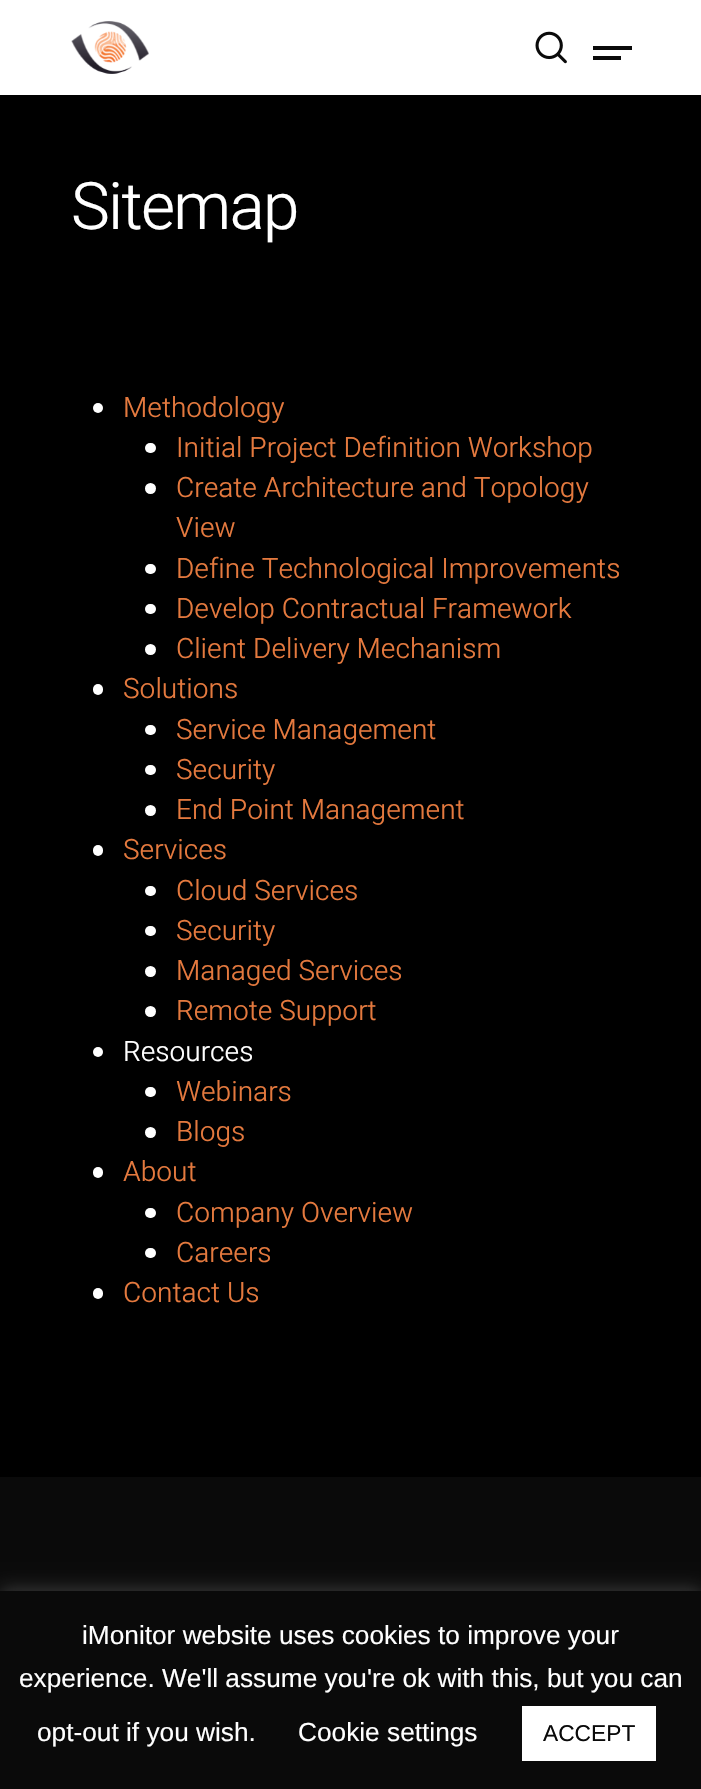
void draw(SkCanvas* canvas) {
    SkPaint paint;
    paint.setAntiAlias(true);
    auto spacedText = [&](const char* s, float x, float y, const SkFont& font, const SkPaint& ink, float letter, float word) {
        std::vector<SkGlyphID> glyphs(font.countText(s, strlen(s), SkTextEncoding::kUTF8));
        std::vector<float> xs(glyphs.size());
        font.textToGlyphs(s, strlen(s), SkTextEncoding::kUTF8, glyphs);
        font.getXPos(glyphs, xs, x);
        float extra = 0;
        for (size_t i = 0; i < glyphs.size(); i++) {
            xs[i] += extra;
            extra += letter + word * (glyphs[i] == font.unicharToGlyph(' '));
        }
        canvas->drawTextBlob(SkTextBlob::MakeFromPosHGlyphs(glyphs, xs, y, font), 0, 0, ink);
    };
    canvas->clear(0xFF000000);
    paint.setColor(0xFFFFFFFF);
    canvas->drawRect(SkRect::MakeXYWH(0, 0, 701, 95), paint);
    canvas->drawImageRect(SkImages::DeferredFromEncodedData(SkData::MakeFromFileName("img1.png")), SkRect::MakeXYWH(71, 21, 78, 53), SkSamplingOptions());
    canvas->drawImageRect(SkImages::DeferredFromEncodedData(SkData::MakeFromFileName("img2.png")), SkRect::MakeXYWH(535, 31, 32, 33), SkSamplingOptions());
    paint.setColor(0xFF0A0A0A);
    canvas->drawRect(SkRect::MakeXYWH(593, 46, 39, 4), paint);
    canvas->drawRect(SkRect::MakeXYWH(593, 56, 28, 4), paint);
    SkFont font1(fontMgr->matchFamilyStyle("Heebo", SkFontStyle(300, SkFontStyle::kNormal_Width, SkFontStyle::kUpright_Slant)), 65.5f);
    font1.setSubpixel(true);
    paint.setColor(0xFFFFFFFF);
    spacedText("Sitemap", 71, 229, font1, paint, -1.75f, 0);
    canvas->drawCircle(98, 408, 5, paint);
    SkFont font2(fontMgr->matchFamilyStyle("Heebo", SkFontStyle(300, SkFontStyle::kNormal_Width, SkFontStyle::kUpright_Slant)), 28);
    font2.setSubpixel(true);
    paint.setColor(0xFFE4793E);
    canvas->drawString("Methodology", 123, 417, font2, paint);
    paint.setColor(0xFFFFFFFF);
    canvas->drawRoundRect(SkRect::MakeXYWH(145, 443, 11, 10), 5, 5, paint);
    paint.setColor(0xFFE4793E);
    canvas->drawString("Initial Project Definition Workshop", 176, 457, font2, paint);
    paint.setColor(0xFFFFFFFF);
    canvas->drawCircle(150.5f, 488.5f, 5.5f, paint);
    paint.setColor(0xFFE4793E);
    canvas->drawString("Create Architecture and Topology", 176, 497, font2, paint);
    canvas->drawString("View", 176, 537, font2, paint);
    paint.setColor(0xFFFFFFFF);
    canvas->drawRoundRect(SkRect::MakeXYWH(145, 564, 11, 10), 5, 5, paint);
    paint.setColor(0xFFE4793E);
    canvas->drawString("Define Technological Improvements", 176, 578, font2, paint);
    paint.setColor(0xFFFFFFFF);
    canvas->drawRoundRect(SkRect::MakeXYWH(145, 604, 11, 10), 5, 5, paint);
    paint.setColor(0xFFE4793E);
    canvas->drawString("Develop Contractual Framework", 176, 618, font2, paint);
    paint.setColor(0xFFFFFFFF);
    canvas->drawCircle(150.5f, 649.5f, 5.5f, paint);
    paint.setColor(0xFFE4793E);
    canvas->drawString("Client Delivery Mechanism", 176, 658, font2, paint);
    paint.setColor(0xFFFFFFFF);
    canvas->drawRoundRect(SkRect::MakeXYWH(93, 684, 10, 11), 5, 5, paint);
    paint.setColor(0xFFE4793E);
    canvas->drawString("Solutions", 123, 698, font2, paint);
    paint.setColor(0xFFFFFFFF);
    canvas->drawRoundRect(SkRect::MakeXYWH(145, 725, 11, 10), 5, 5, paint);
    paint.setColor(0xFFE4793E);
    canvas->drawString("Service Management", 176, 739, font2, paint);
    paint.setColor(0xFFFFFFFF);
    canvas->drawRoundRect(SkRect::MakeXYWH(145, 765, 11, 10), 5, 5, paint);
    paint.setColor(0xFFE4793E);
    canvas->drawString("Security", 176, 779, font2, paint);
    paint.setColor(0xFFFFFFFF);
    canvas->drawCircle(150.5f, 810.5f, 5.5f, paint);
    paint.setColor(0xFFE4793E);
    canvas->drawString("End Point Management", 176, 819, font2, paint);
    paint.setColor(0xFFFFFFFF);
    canvas->drawRoundRect(SkRect::MakeXYWH(93, 845, 10, 11), 5, 5, paint);
    paint.setColor(0xFFE4793E);
    canvas->drawString("Services", 123, 859, font2, paint);
    paint.setColor(0xFFFFFFFF);
    canvas->drawRoundRect(SkRect::MakeXYWH(145, 886, 11, 10), 5, 5, paint);
    paint.setColor(0xFFE4793E);
    canvas->drawString("Cloud Services", 176, 900, font2, paint);
    paint.setColor(0xFFFFFFFF);
    canvas->drawRoundRect(SkRect::MakeXYWH(145, 926, 11, 10), 5, 5, paint);
    paint.setColor(0xFFE4793E);
    canvas->drawString("Security", 176, 940, font2, paint);
    paint.setColor(0xFFFFFFFF);
    canvas->drawCircle(150.5f, 971.5f, 5.5f, paint);
    paint.setColor(0xFFE4793E);
    canvas->drawString("Managed Services", 176, 980, font2, paint);
    paint.setColor(0xFFFFFFFF);
    canvas->drawCircle(150.5f, 1011.5f, 5.5f, paint);
    paint.setColor(0xFFE4793E);
    canvas->drawString("Remote Support", 176, 1020, font2, paint);
    paint.setColor(0xFFFFFFFF);
    canvas->drawCircle(98, 1052, 5, paint);
    canvas->drawString("Resources", 123, 1061, font2, paint);
    canvas->drawRoundRect(SkRect::MakeXYWH(145, 1087, 11, 10), 5, 5, paint);
    paint.setColor(0xFFE4793E);
    canvas->drawString("Webinars", 176, 1101, font2, paint);
    paint.setColor(0xFFFFFFFF);
    canvas->drawCircle(150.5f, 1132.5f, 5.5f, paint);
    paint.setColor(0xFFE4793E);
    canvas->drawString("Blogs", 176, 1141, font2, paint);
    paint.setColor(0xFFFFFFFF);
    canvas->drawRoundRect(SkRect::MakeXYWH(93, 1167, 10, 11), 5, 5, paint);
    paint.setColor(0xFFE4793E);
    canvas->drawString("About", 123, 1181, font2, paint);
    paint.setColor(0xFFFFFFFF);
    canvas->drawRoundRect(SkRect::MakeXYWH(145, 1208, 11, 10), 5, 5, paint);
    paint.setColor(0xFFE4793E);
    canvas->drawString("Company Overview", 176, 1222, font2, paint);
    paint.setColor(0xFFFFFFFF);
    canvas->drawRoundRect(SkRect::MakeXYWH(145, 1248, 11, 10), 5, 5, paint);
    paint.setColor(0xFFE4793E);
    canvas->drawString("Careers", 176, 1262, font2, paint);
    paint.setColor(0xFFFFFFFF);
    canvas->drawRoundRect(SkRect::MakeXYWH(93, 1288, 10, 11), 5, 5, paint);
    paint.setColor(0xFFE4793E);
    canvas->drawString("Contact Us", 123, 1302, font2, paint);
    paint.setColor(0xFF0A0A0A);
    canvas->drawRect(SkRect::MakeXYWH(0, 1477, 701, 114), paint);
    paint.setColor(0x4DACABAB);
    paint.setMaskFilter(SkMaskFilter::MakeBlur(kNormal_SkBlurStyle, 9));
    canvas->drawRect(SkRect::MakeXYWH(0, 1589, 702, 200), paint);
    paint.setMaskFilter(nullptr);
    paint.setColor(0xFF0A0A0A);
    canvas->drawRect(SkRect::MakeXYWH(0, 1591, 701, 198), paint);
    SkFont font3(fontMgr->matchFamilyStyle("Liberation Sans", SkFontStyle::Normal()), 26.25f);
    font3.setSubpixel(true);
    paint.setColor(0xFFFFFFFF);
    canvas->drawString("iMonitor website uses cookies to improve your", 82, 1644, font3, paint);
    canvas->drawString("experience. We'll assume you're ok with this, but you can", 19, 1687, font3, paint);
    canvas->drawString("opt-out if you wish.", 37, 1741, font3, paint);
    canvas->drawString("Cookie settings", 298, 1741, font3, paint);
    canvas->drawRect(SkRect::MakeXYWH(522, 1706, 134, 55), paint);
    SkFont font4(fontMgr->matchFamilyStyle("Liberation Sans", SkFontStyle::Normal()), 22.75f);
    font4.setSubpixel(true);
    paint.setColor(0xFF0A0A0A);
    canvas->drawString("ACCEPT", 543, 1741, font4, paint);
}
